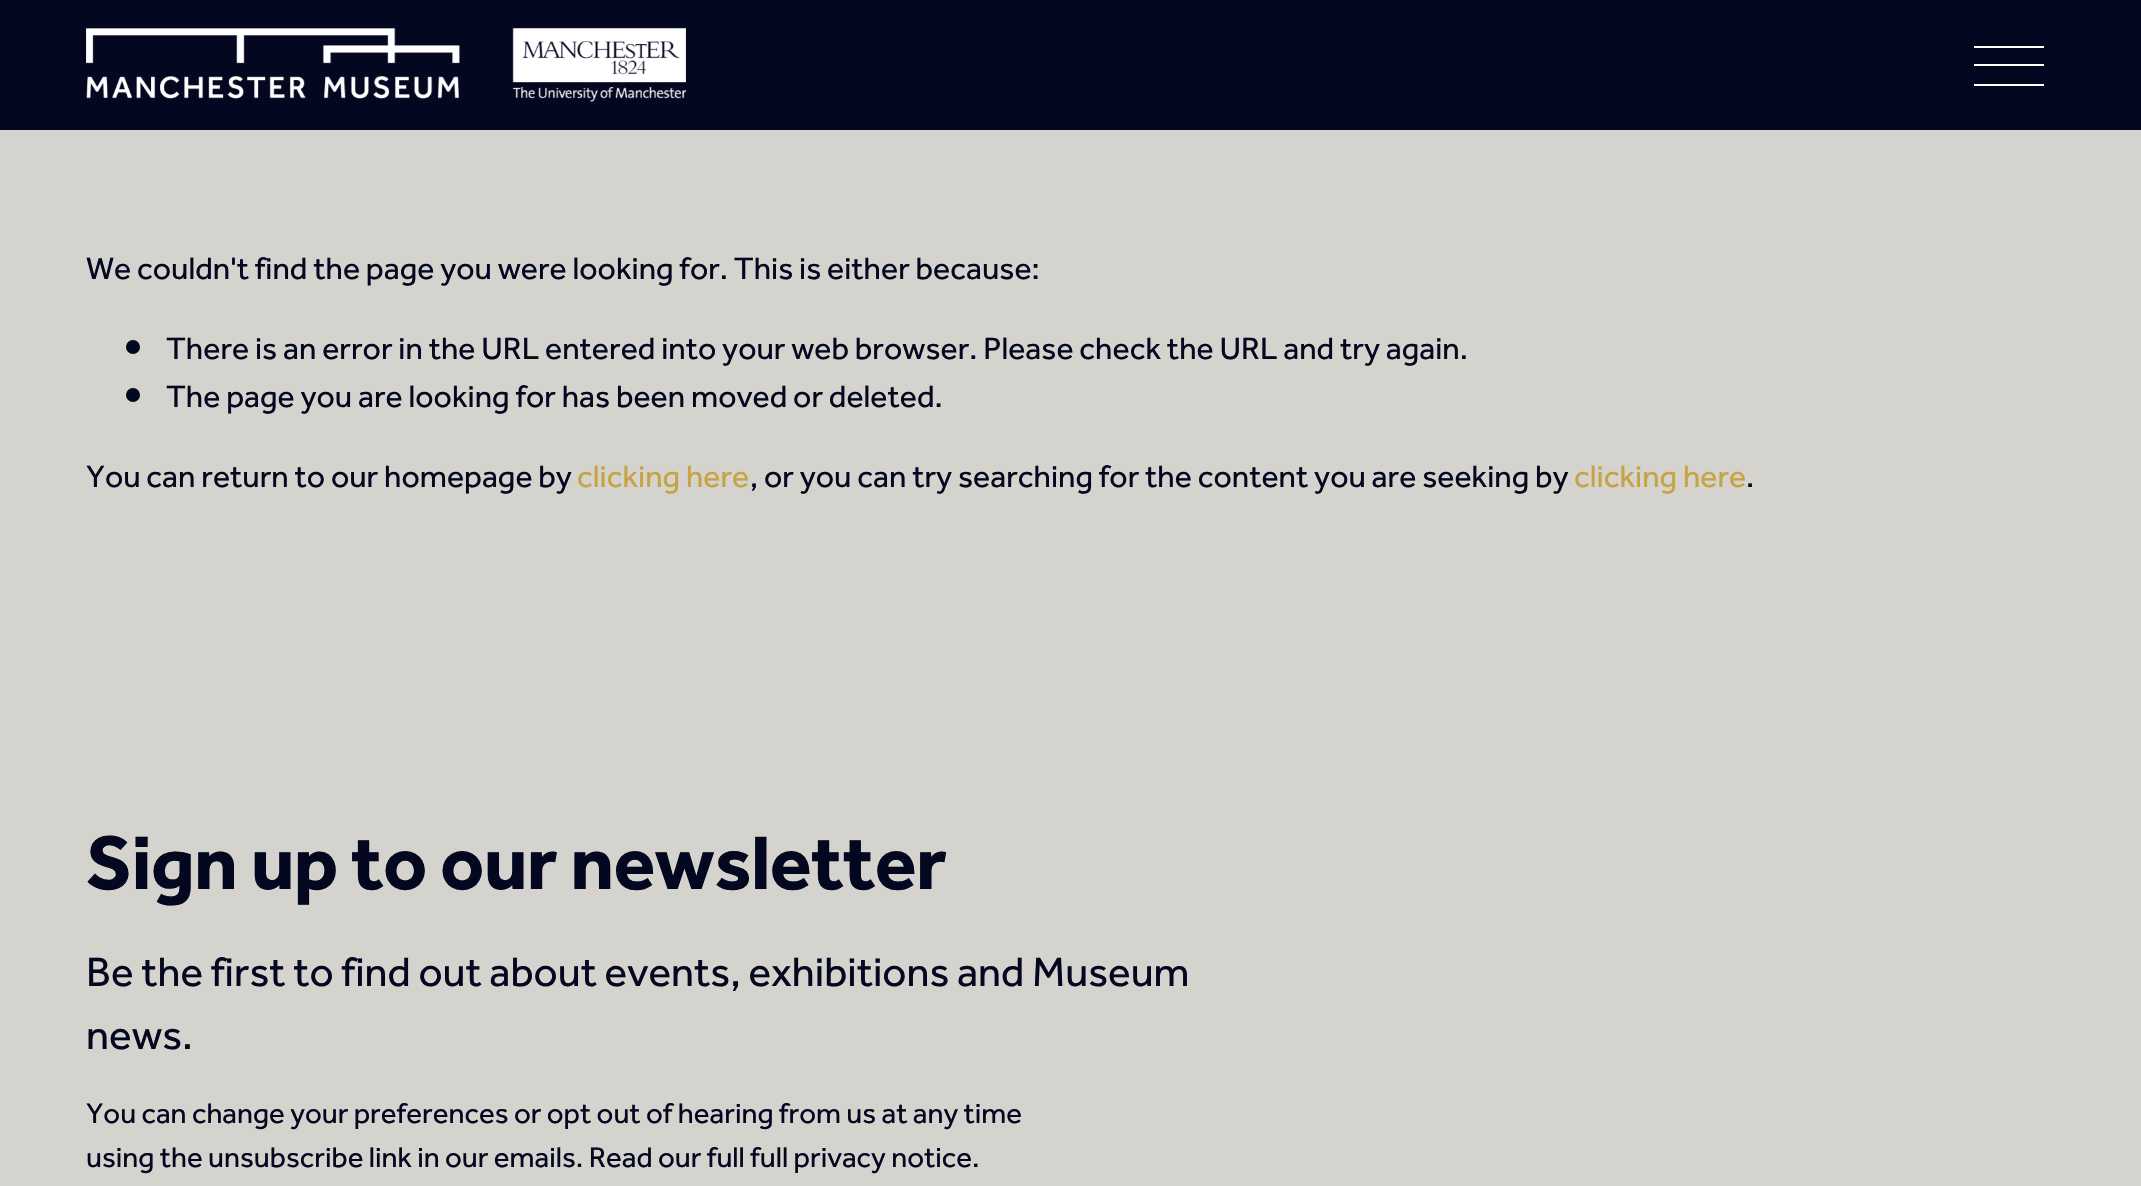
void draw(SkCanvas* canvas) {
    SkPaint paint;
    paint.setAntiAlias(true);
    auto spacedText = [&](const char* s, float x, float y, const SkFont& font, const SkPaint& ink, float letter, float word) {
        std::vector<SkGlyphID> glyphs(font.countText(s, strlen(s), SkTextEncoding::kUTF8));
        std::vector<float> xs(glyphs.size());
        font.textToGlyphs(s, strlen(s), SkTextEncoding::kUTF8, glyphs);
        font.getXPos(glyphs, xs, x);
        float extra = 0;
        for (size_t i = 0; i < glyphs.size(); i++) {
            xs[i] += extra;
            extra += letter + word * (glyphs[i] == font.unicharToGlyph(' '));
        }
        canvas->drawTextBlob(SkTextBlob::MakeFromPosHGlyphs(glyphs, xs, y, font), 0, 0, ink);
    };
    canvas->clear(0xFFD5D3CD);
    paint.setColor(0xFF040720);
    canvas->drawRect(SkRect::MakeXYWH(0, 0, 2141, 130), paint);
    canvas->drawImageRect(SkImages::DeferredFromEncodedData(SkData::MakeFromFileName("img1.png")), SkRect::MakeXYWH(86, 28, 600, 74), SkSamplingOptions());
    paint.setColor(0xFFFFFFFF);
    canvas->drawRect(SkRect::MakeXYWH(1974, 46, 70, 2), paint);
    canvas->drawRect(SkRect::MakeXYWH(1974, 64, 70, 2), paint);
    canvas->drawRect(SkRect::MakeXYWH(1974, 84, 70, 2), paint);
    SkFont font1(fontMgr->matchFamilyStyle("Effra", SkFontStyle::Normal()), 32);
    font1.setSubpixel(true);
    paint.setColor(0xFF040720);
    canvas->drawString("We couldn't find the page you were looking for. This is either because:", 86, 279, font1, paint);
    canvas->drawCircle(133, 347, 7, paint);
    canvas->drawString("There is an error in the URL entered into your web browser. Please check the URL and try again.", 166, 359, font1, paint);
    canvas->drawCircle(133, 395, 7, paint);
    canvas->drawString("The page you are looking for has been moved or deleted.", 166, 407, font1, paint);
    canvas->drawString("You can return to our homepage by", 86, 487, font1, paint);
    paint.setColor(0xFFC6A445);
    canvas->drawString("clicking here", 577, 487, font1, paint);
    paint.setColor(0xFF040720);
    canvas->drawString(", or you can try searching for the content you are seeking by", 750, 487, font1, paint);
    paint.setColor(0xFFC6A445);
    canvas->drawString("clicking here", 1574, 487, font1, paint);
    paint.setColor(0xFF040720);
    canvas->drawString(".", 1746, 487, font1, paint);
    SkFont font2(fontMgr->matchFamilyStyle("Effra", SkFontStyle::Bold()), 78.25f);
    font2.setSubpixel(true);
    spacedText("Sign up to our newsletter", 86, 889, font2, paint, -0.75f, 0);
    SkFont font3(fontMgr->matchFamilyStyle("Effra", SkFontStyle::Normal()), 42.25f);
    font3.setSubpixel(true);
    canvas->drawString("Be the first to find out about events, exhibitions and Museum", 86, 986, font3, paint);
    canvas->drawString("news.", 86, 1049, font3, paint);
    SkFont font4(fontMgr->matchFamilyStyle("Effra", SkFontStyle::Normal()), 29.4f);
    font4.setSubpixel(true);
    canvas->drawString("You can change your preferences or opt out of hearing from us at any time", 86, 1123, font4, paint);
    canvas->drawString("using the unsubscribe link in our emails. Read our full full privacy notice.", 86, 1167, font4, paint);
}
